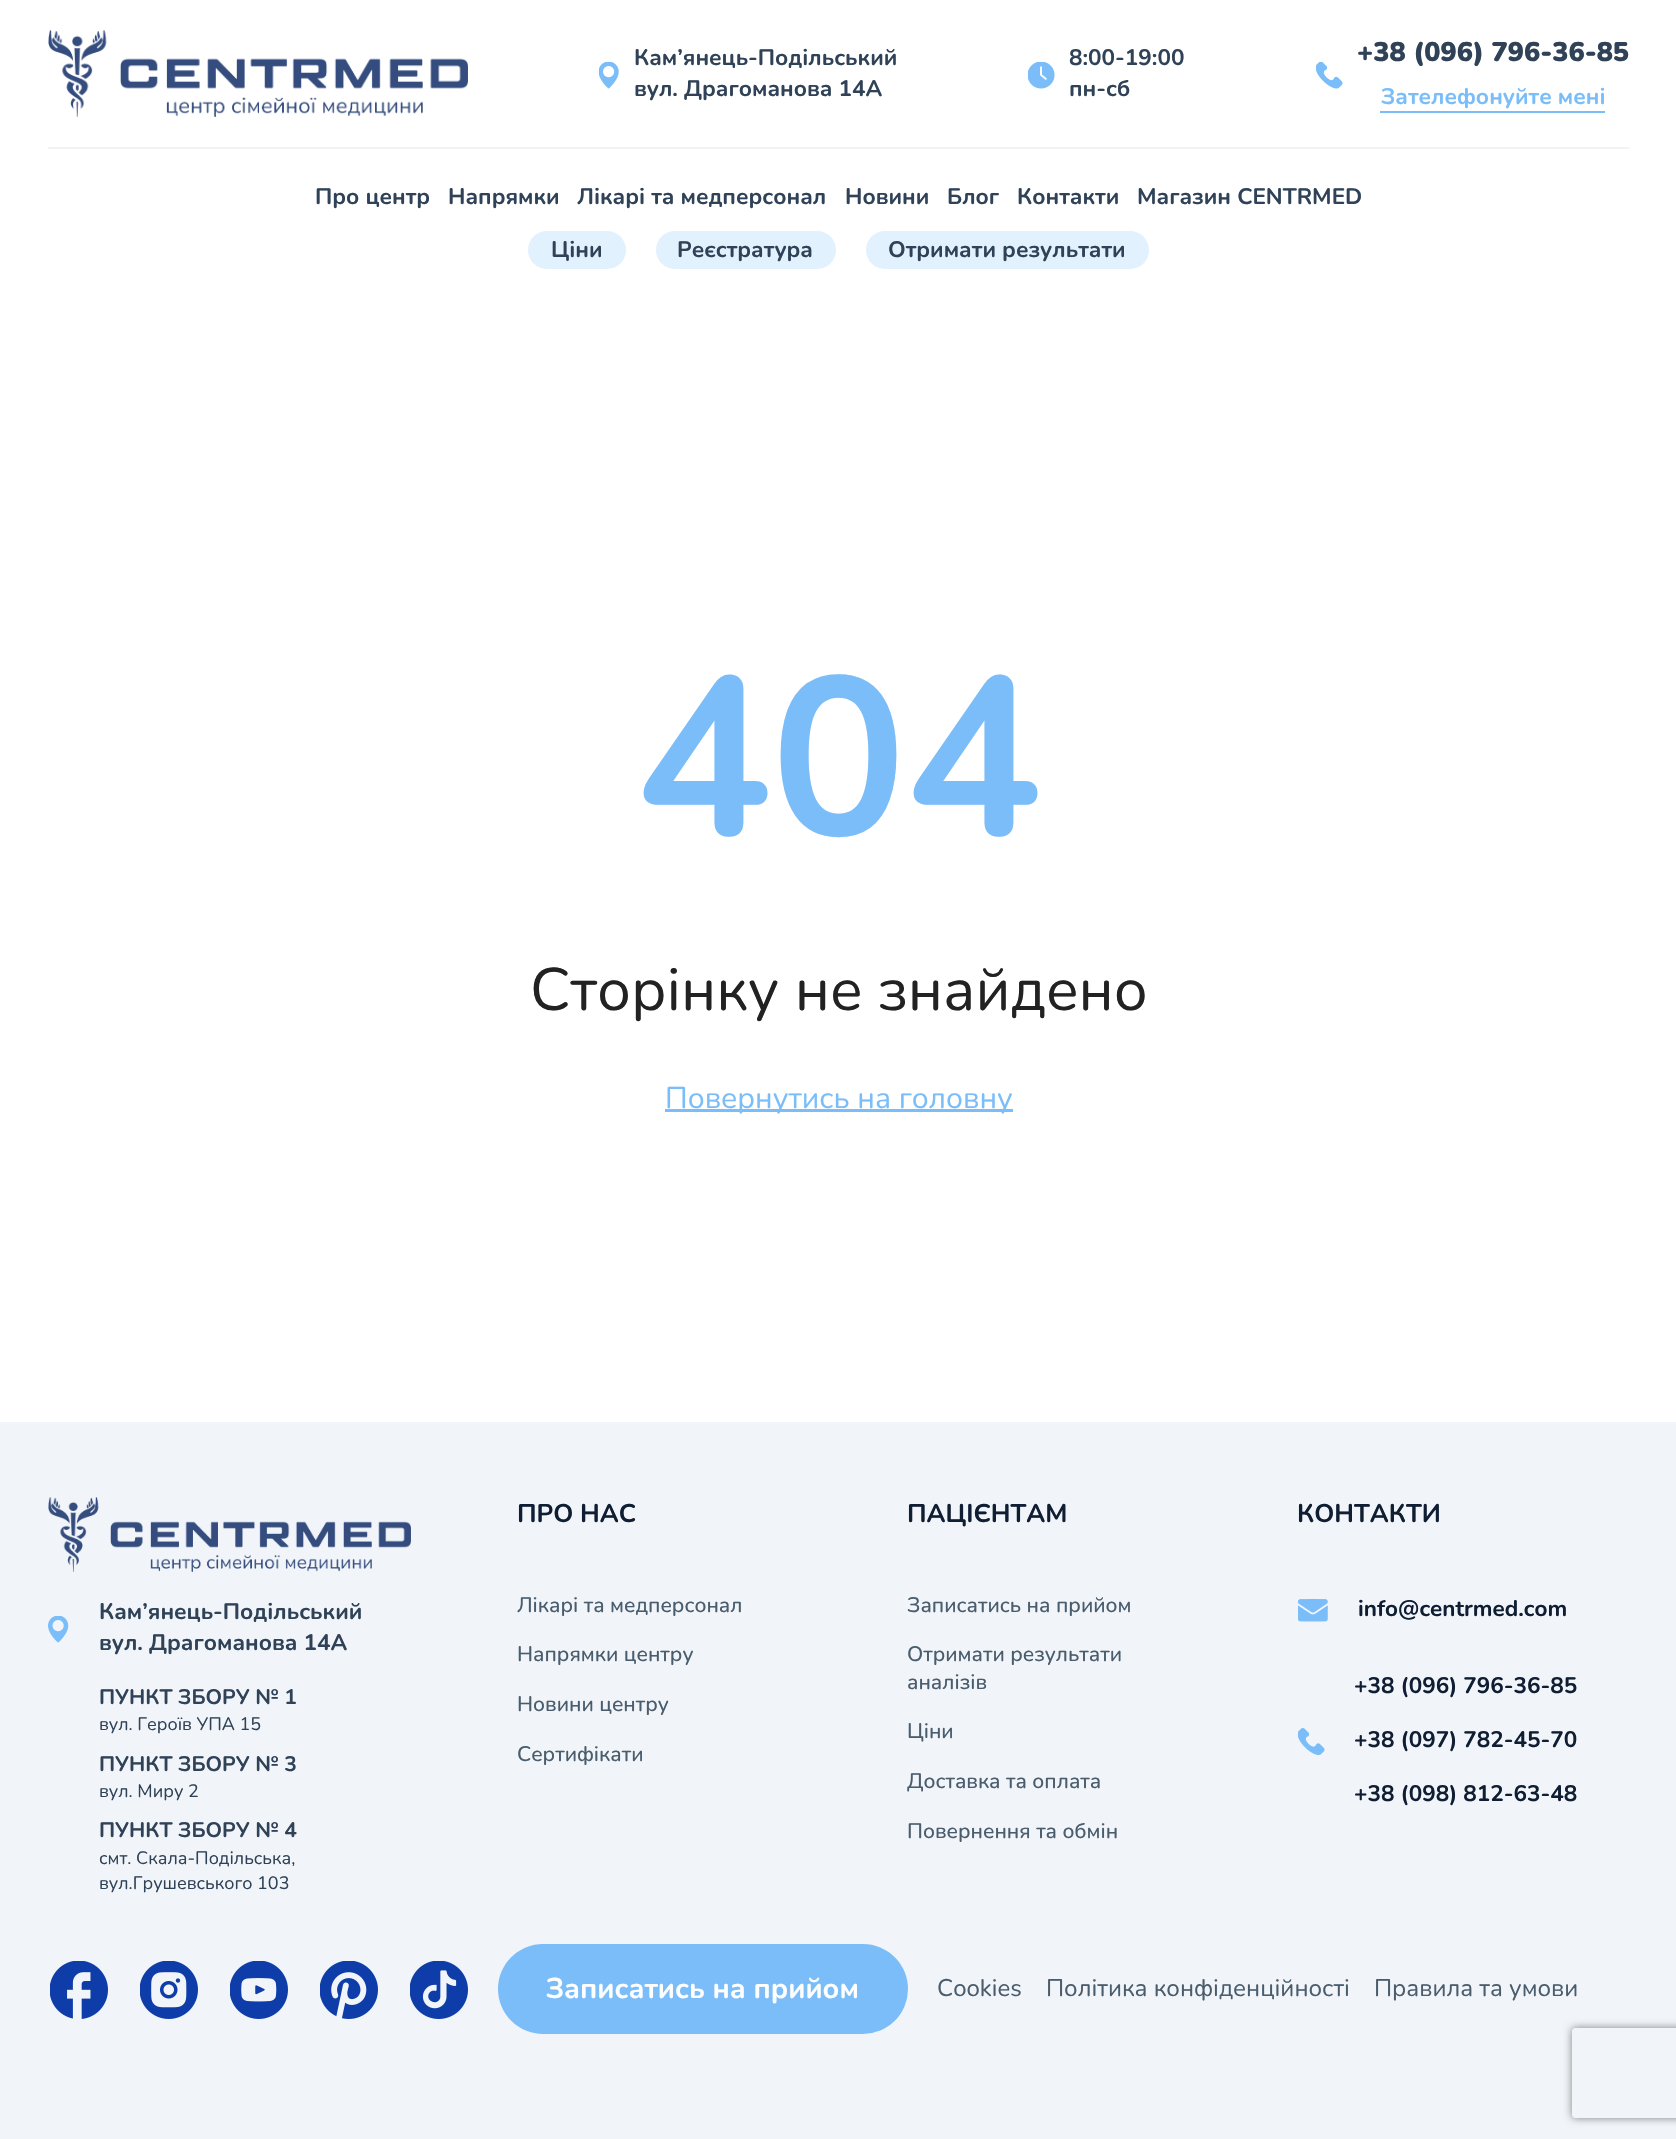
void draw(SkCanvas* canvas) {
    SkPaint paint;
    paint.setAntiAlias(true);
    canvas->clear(0xFFFFFFFF);
    paint.setColor(0xFFF2F3F5);
    canvas->drawRect(SkRect::MakeXYWH(48, 147, 1581, 2), paint);
    canvas->drawImageRect(SkImages::DeferredFromEncodedData(SkData::MakeFromFileName("img1.png")), SkRect::MakeXYWH(48, 30, 420, 87), SkSamplingOptions());
    canvas->drawImageRect(SkImages::DeferredFromEncodedData(SkData::MakeFromFileName("img2.png")), SkRect::MakeXYWH(599, 62, 20, 27), SkSamplingOptions());
    SkFont font1(fontMgr->matchFamilyStyle("Nunito", SkFontStyle::Bold()), 22.5f);
    font1.setSubpixel(true);
    paint.setColor(0xFF2F4257);
    canvas->drawString("Кам’янець-Подільський", 634, 65, font1, paint);
    canvas->drawString("вул. Драгоманова 14А", 634, 96, font1, paint);
    canvas->drawImageRect(SkImages::DeferredFromEncodedData(SkData::MakeFromFileName("img3.png")), SkRect::MakeXYWH(1028, 62, 27, 27), SkSamplingOptions());
    canvas->drawString("8:00-19:00", 1069, 65, font1, paint);
    canvas->drawString("пн-сб", 1069, 96, font1, paint);
    canvas->drawImageRect(SkImages::DeferredFromEncodedData(SkData::MakeFromFileName("img4.png")), SkRect::MakeXYWH(1316, 62, 27, 27), SkSamplingOptions());
    SkFont font2(fontMgr->matchFamilyStyle("Nunito", SkFontStyle(900, SkFontStyle::kNormal_Width, SkFontStyle::kUpright_Slant)), 27);
    font2.setSubpixel(true);
    canvas->drawString("+38 (096) 796-36-85", 1357, 61, font2, paint);
    paint.setColor(0xFF7ABDF9);
    canvas->drawString("Зателефонуйте мені", 1381, 104, font1, paint);
    canvas->drawRect(SkRect::MakeXYWH(1380, 111, 225, 2), paint);
    paint.setColor(0xFF2F4257);
    canvas->drawString("Про центр", 315, 204, font1, paint);
    canvas->drawString("Напрямки", 448, 204, font1, paint);
    canvas->drawString("Лікарі та медперсонал", 577, 204, font1, paint);
    canvas->drawString("Новини", 845, 204, font1, paint);
    canvas->drawString("Блог", 947, 204, font1, paint);
    canvas->drawString("Контакти", 1017, 204, font1, paint);
    canvas->drawString("Магазин CENTRMED", 1137, 204, font1, paint);
    paint.setColor(0xFFE2F1FE);
    canvas->drawRoundRect(SkRect::MakeXYWH(528, 231, 98, 38), 19, 19, paint);
    paint.setColor(0xFF2F4257);
    canvas->drawString("Ціни", 551, 257, font1, paint);
    paint.setColor(0xFFE2F1FE);
    canvas->drawRoundRect(SkRect::MakeXYWH(656, 231, 180, 38), 19, 19, paint);
    paint.setColor(0xFF2F4257);
    canvas->drawString("Реєстратура", 677, 257, font1, paint);
    paint.setColor(0xFFE2F1FE);
    canvas->drawRoundRect(SkRect::MakeXYWH(866, 231, 283, 38), 19, 19, paint);
    paint.setColor(0xFF2F4257);
    canvas->drawString("Отримати результати", 888, 257, font1, paint);
    SkFont font3(fontMgr->matchFamilyStyle("Nunito", SkFontStyle::Bold()), 225);
    font3.setSubpixel(true);
    paint.setColor(0xFF7ABDF9);
    canvas->drawString("404", 636, 835, font3, paint);
    SkFont font4(fontMgr->matchFamilyStyle("Nunito", SkFontStyle::Normal()), 60);
    font4.setSubpixel(true);
    paint.setColor(0xFF222222);
    canvas->drawString("Сторінку не знайдено", 530, 1010, font4, paint);
    paint.setColor(0xFF7ABDF9);
    canvas->drawRect(SkRect::MakeXYWH(665, 1109, 348, 3), paint);
    SkFont font5(fontMgr->matchFamilyStyle("Nunito", SkFontStyle::Normal()), 30);
    font5.setSubpixel(true);
    canvas->drawString("Повернутись на головну", 665, 1108, font5, paint);
    paint.setColor(0xFFF1F5F9);
    canvas->drawRect(SkRect::MakeXYWH(0, 1422, 1676, 717), paint);
    canvas->drawImageRect(SkImages::DeferredFromEncodedData(SkData::MakeFromFileName("img5.png")), SkRect::MakeXYWH(48, 1497, 363, 75), SkSamplingOptions());
    canvas->drawImageRect(SkImages::DeferredFromEncodedData(SkData::MakeFromFileName("img6.png")), SkRect::MakeXYWH(48, 1616, 21, 27), SkSamplingOptions());
    paint.setColor(0xFF2F4257);
    canvas->drawString("Кам’янець-Подільський", 99, 1619, font1, paint);
    canvas->drawString("вул. Драгоманова 14А", 99, 1650, font1, paint);
    SkFont font6(fontMgr->matchFamilyStyle("Nunito", SkFontStyle::Bold()), 21);
    font6.setSubpixel(true);
    canvas->drawString("ПУНКТ ЗБОРУ № 1", 99, 1704, font6, paint);
    SkFont font7(fontMgr->matchFamilyStyle("Nunito", SkFontStyle::Normal()), 18);
    font7.setSubpixel(true);
    canvas->drawString("вул. Героїв УПА 15", 99, 1730, font7, paint);
    canvas->drawString("ПУНКТ ЗБОРУ № 3", 99, 1771, font6, paint);
    canvas->drawString("вул. Миру 2", 99, 1797, font7, paint);
    canvas->drawString("ПУНКТ ЗБОРУ № 4", 99, 1837, font6, paint);
    canvas->drawString("смт. Скала-Подільська,", 99, 1864, font7, paint);
    canvas->drawString("вул.Грушевського 103", 99, 1889, font7, paint);
    SkFont font8(fontMgr->matchFamilyStyle("Nunito", SkFontStyle::Bold()), 25.5f);
    font8.setSubpixel(true);
    paint.setColor(0xFF101E34);
    canvas->drawString("ПРО НАС", 517, 1522, font8, paint);
    SkFont font9(fontMgr->matchFamilyStyle("Nunito", SkFontStyle(500, SkFontStyle::kNormal_Width, SkFontStyle::kUpright_Slant)), 21);
    font9.setSubpixel(true);
    paint.setColor(0xFF4A5D6E);
    canvas->drawString("Лікарі та медперсонал", 517, 1612, font9, paint);
    canvas->drawString("Напрямки центру", 517, 1661, font9, paint);
    canvas->drawString("Новини центру", 517, 1711, font9, paint);
    canvas->drawString("Сертифікати", 517, 1761, font9, paint);
    paint.setColor(0xFF101E34);
    canvas->drawString("ПАЦІЄНТАМ", 907, 1522, font8, paint);
    paint.setColor(0xFF4A5D6E);
    canvas->drawString("Записатись на прийом", 907, 1612, font9, paint);
    canvas->drawString("Отримати результати", 907, 1661, font9, paint);
    canvas->drawString("аналізів", 907, 1689, font9, paint);
    canvas->drawString("Ціни", 907, 1738, font9, paint);
    canvas->drawString("Доставка та оплата", 907, 1788, font9, paint);
    canvas->drawString("Повернення та обмін", 907, 1838, font9, paint);
    paint.setColor(0xFF101E34);
    canvas->drawString("КОНТАКТИ", 1297, 1522, font8, paint);
    canvas->drawImageRect(SkImages::DeferredFromEncodedData(SkData::MakeFromFileName("img7.png")), SkRect::MakeXYWH(1298, 1599, 30, 23), SkSamplingOptions());
    canvas->drawString("info@centrmed.com", 1358, 1616, font1, paint);
    canvas->drawImageRect(SkImages::DeferredFromEncodedData(SkData::MakeFromFileName("img8.png")), SkRect::MakeXYWH(1298, 1728, 27, 27), SkSamplingOptions());
    canvas->drawString("+38 (096) 796-36-85", 1354, 1693, font1, paint);
    canvas->drawString("+38 (097) 782-45-70", 1354, 1747, font1, paint);
    canvas->drawString("+38 (098) 812-63-48", 1354, 1801, font1, paint);
    canvas->drawImageRect(SkImages::DeferredFromEncodedData(SkData::MakeFromFileName("img9.png")), SkRect::MakeXYWH(50, 1961, 58, 58), SkSamplingOptions());
    canvas->drawImageRect(SkImages::DeferredFromEncodedData(SkData::MakeFromFileName("img10.png")), SkRect::MakeXYWH(140, 1961, 58, 58), SkSamplingOptions());
    canvas->drawImageRect(SkImages::DeferredFromEncodedData(SkData::MakeFromFileName("img11.png")), SkRect::MakeXYWH(230, 1961, 58, 58), SkSamplingOptions());
    canvas->drawImageRect(SkImages::DeferredFromEncodedData(SkData::MakeFromFileName("img12.png")), SkRect::MakeXYWH(320, 1961, 58, 58), SkSamplingOptions());
    canvas->drawImageRect(SkImages::DeferredFromEncodedData(SkData::MakeFromFileName("img13.png")), SkRect::MakeXYWH(410, 1961, 58, 58), SkSamplingOptions());
    paint.setColor(0xFF7ABDF9);
    canvas->drawRoundRect(SkRect::MakeXYWH(498, 1944, 410, 90), 45, 45, paint);
    SkFont font10(fontMgr->matchFamilyStyle("Nunito", SkFontStyle::Bold()), 28.5f);
    font10.setSubpixel(true);
    paint.setColor(0xFFFFFFFF);
    canvas->drawString("Записатись на прийом", 546, 1998, font10, paint);
    SkFont font11(fontMgr->matchFamilyStyle("Nunito", SkFontStyle::Normal()), 24);
    font11.setSubpixel(true);
    paint.setColor(0xFF4A5D6E);
    canvas->drawString("Cookies", 937, 1996, font11, paint);
    canvas->drawString("Політика конфіденційності", 1046, 1996, font11, paint);
    canvas->drawString("Правила та умови", 1374, 1996, font11, paint);
    canvas->save();
    canvas->clipPath(SkPathBuilder(SkPathFillType::kEvenOdd).moveTo(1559, 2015).lineTo(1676, 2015).lineTo(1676, 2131).lineTo(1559, 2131).close().moveTo(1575, 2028).lineTo(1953, 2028).cubicTo(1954.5f, 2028, 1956, 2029.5f, 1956, 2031).lineTo(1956, 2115).cubicTo(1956, 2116.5f, 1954.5f, 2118, 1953, 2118).lineTo(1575, 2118).cubicTo(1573.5f, 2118, 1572, 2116.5f, 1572, 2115).lineTo(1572, 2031).cubicTo(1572, 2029.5f, 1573.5f, 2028, 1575, 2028).close().detach(), true);
    paint.setColor(0xFF808080);
    paint.setMaskFilter(SkMaskFilter::MakeBlur(kNormal_SkBlurStyle, 4));
    canvas->drawRoundRect(SkRect::MakeXYWH(1572, 2028, 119, 90), 3, 3, paint);
    paint.setMaskFilter(nullptr);
    canvas->restore();
}
